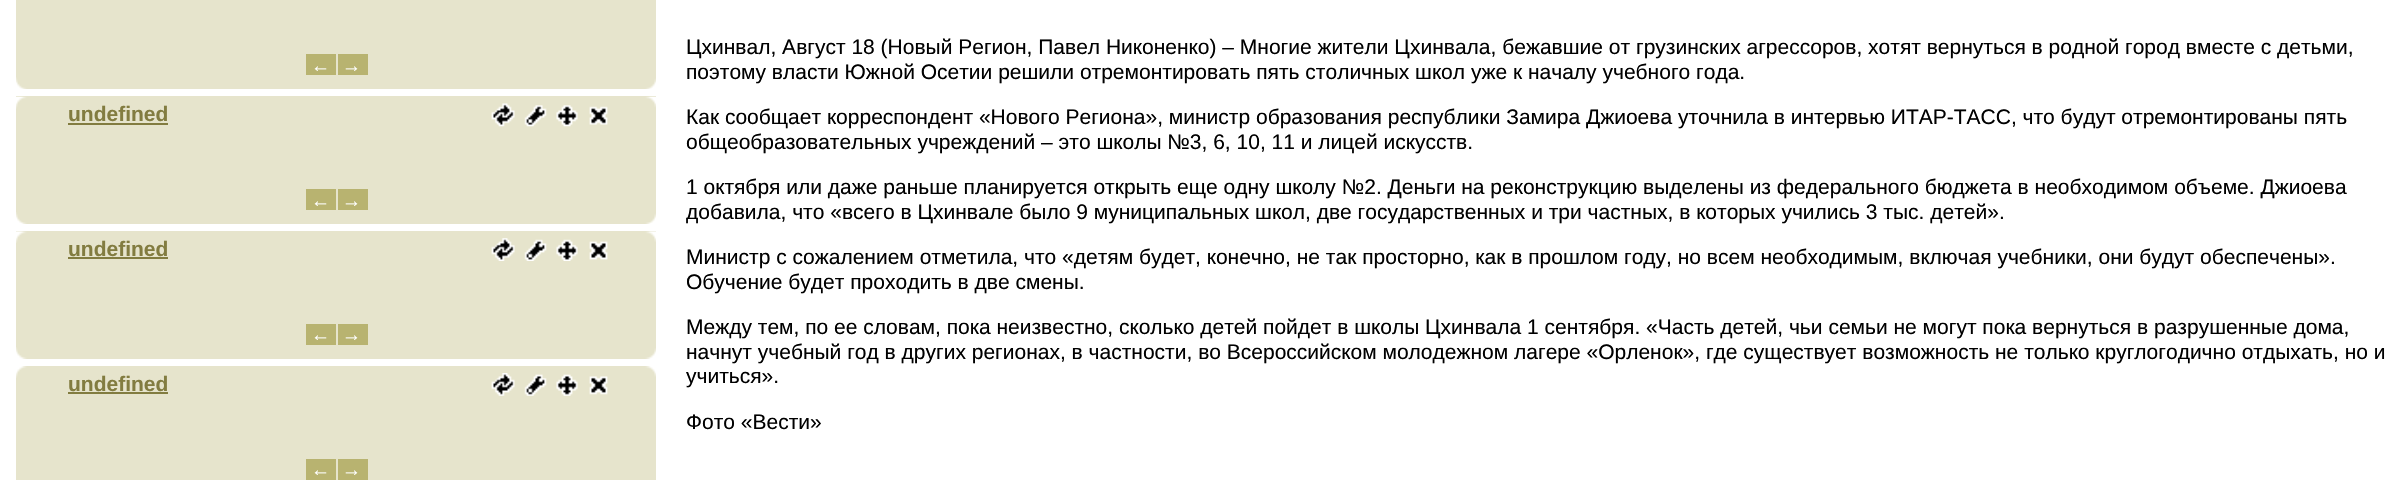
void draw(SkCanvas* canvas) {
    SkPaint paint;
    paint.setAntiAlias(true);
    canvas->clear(0xFFFFFFFF);
    paint.setColor(0xFFE6E4CC);
    canvas->drawRect(SkRect::MakeXYWH(16, 0, 640, 89), paint);
    paint.setColor(0xFFB8B370);
    canvas->drawRect(SkRect::MakeXYWH(306, 54, 30, 21), paint);
    SkFont font1(fontMgr->matchFamilyStyle("Liberation Sans", SkFontStyle::Normal()), 19);
    font1.setSubpixel(true);
    paint.setColor(0xFFFFFFFF);
    canvas->drawString("←", 311, 72, font1, paint);
    paint.setColor(0xFFB8B370);
    canvas->drawRect(SkRect::MakeXYWH(338, 54, 30, 21), paint);
    paint.setColor(0xFFFFFFFF);
    canvas->drawString("→", 342, 72, font1, paint);
    canvas->drawImageRect(SkImages::DeferredFromEncodedData(SkData::MakeFromFileName("img1.png")), SkRect::MakeXYWH(16, 77, 640, 12), SkSamplingOptions());
    paint.setColor(0xFFE6E4CC);
    canvas->drawRect(SkRect::MakeXYWH(16, 96, 640, 128), paint);
    canvas->drawImageRect(SkImages::DeferredFromEncodedData(SkData::MakeFromFileName("img2.png")), SkRect::MakeXYWH(16, 96, 640, 13), SkSamplingOptions());
    SkFont font2(fontMgr->matchFamilyStyle("Liberation Sans", SkFontStyle::Bold()), 21);
    font2.setSubpixel(true);
    paint.setColor(0xFF827C40);
    canvas->drawString("undefined", 68, 121, font2, paint);
    canvas->drawRect(SkRect::MakeXYWH(68, 123, 100, 2), paint);
    canvas->drawImageRect(SkImages::DeferredFromEncodedData(SkData::MakeFromFileName("img3.png")), SkRect::MakeXYWH(491, 103, 24, 24), SkSamplingOptions());
    canvas->drawImageRect(SkImages::DeferredFromEncodedData(SkData::MakeFromFileName("img4.png")), SkRect::MakeXYWH(524, 105, 23, 22), SkSamplingOptions());
    canvas->drawImageRect(SkImages::DeferredFromEncodedData(SkData::MakeFromFileName("img5.png")), SkRect::MakeXYWH(556, 105, 22, 22), SkSamplingOptions());
    canvas->drawImageRect(SkImages::DeferredFromEncodedData(SkData::MakeFromFileName("img6.png")), SkRect::MakeXYWH(589, 106, 19, 19), SkSamplingOptions());
    paint.setColor(0xFFB8B370);
    canvas->drawRect(SkRect::MakeXYWH(306, 189, 30, 21), paint);
    paint.setColor(0xFFFFFFFF);
    canvas->drawString("←", 311, 207, font1, paint);
    paint.setColor(0xFFB8B370);
    canvas->drawRect(SkRect::MakeXYWH(338, 189, 30, 21), paint);
    paint.setColor(0xFFFFFFFF);
    canvas->drawString("→", 342, 207, font1, paint);
    canvas->drawImageRect(SkImages::DeferredFromEncodedData(SkData::MakeFromFileName("img7.png")), SkRect::MakeXYWH(16, 212, 640, 12), SkSamplingOptions());
    paint.setColor(0xFFE6E4CC);
    canvas->drawRect(SkRect::MakeXYWH(16, 231, 640, 128), paint);
    canvas->drawImageRect(SkImages::DeferredFromEncodedData(SkData::MakeFromFileName("img8.png")), SkRect::MakeXYWH(16, 231, 640, 12), SkSamplingOptions());
    paint.setColor(0xFF827C40);
    canvas->drawString("undefined", 68, 256, font2, paint);
    canvas->drawRect(SkRect::MakeXYWH(68, 257, 100, 2), paint);
    canvas->drawImageRect(SkImages::DeferredFromEncodedData(SkData::MakeFromFileName("img9.png")), SkRect::MakeXYWH(491, 238, 24, 23), SkSamplingOptions());
    canvas->drawImageRect(SkImages::DeferredFromEncodedData(SkData::MakeFromFileName("img10.png")), SkRect::MakeXYWH(524, 239, 23, 22), SkSamplingOptions());
    canvas->drawImageRect(SkImages::DeferredFromEncodedData(SkData::MakeFromFileName("img11.png")), SkRect::MakeXYWH(556, 239, 22, 22), SkSamplingOptions());
    canvas->drawImageRect(SkImages::DeferredFromEncodedData(SkData::MakeFromFileName("img12.png")), SkRect::MakeXYWH(589, 241, 19, 19), SkSamplingOptions());
    paint.setColor(0xFFB8B370);
    canvas->drawRect(SkRect::MakeXYWH(306, 324, 30, 21), paint);
    paint.setColor(0xFFFFFFFF);
    canvas->drawString("←", 311, 341, font1, paint);
    paint.setColor(0xFFB8B370);
    canvas->drawRect(SkRect::MakeXYWH(338, 324, 30, 21), paint);
    paint.setColor(0xFFFFFFFF);
    canvas->drawString("→", 342, 341, font1, paint);
    canvas->drawImageRect(SkImages::DeferredFromEncodedData(SkData::MakeFromFileName("img13.png")), SkRect::MakeXYWH(16, 347, 640, 12), SkSamplingOptions());
    paint.setColor(0xFFE6E4CC);
    canvas->drawRect(SkRect::MakeXYWH(16, 366, 640, 114), paint);
    canvas->drawImageRect(SkImages::DeferredFromEncodedData(SkData::MakeFromFileName("img14.png")), SkRect::MakeXYWH(16, 366, 640, 12), SkSamplingOptions());
    paint.setColor(0xFF827C40);
    canvas->drawString("undefined", 68, 391, font2, paint);
    canvas->drawRect(SkRect::MakeXYWH(68, 392, 100, 2), paint);
    canvas->drawImageRect(SkImages::DeferredFromEncodedData(SkData::MakeFromFileName("img15.png")), SkRect::MakeXYWH(491, 373, 24, 23), SkSamplingOptions());
    canvas->drawImageRect(SkImages::DeferredFromEncodedData(SkData::MakeFromFileName("img16.png")), SkRect::MakeXYWH(524, 374, 23, 22), SkSamplingOptions());
    canvas->drawImageRect(SkImages::DeferredFromEncodedData(SkData::MakeFromFileName("img17.png")), SkRect::MakeXYWH(556, 374, 22, 22), SkSamplingOptions());
    canvas->drawImageRect(SkImages::DeferredFromEncodedData(SkData::MakeFromFileName("img18.png")), SkRect::MakeXYWH(589, 376, 19, 19), SkSamplingOptions());
    paint.setColor(0xFFB8B370);
    canvas->drawRect(SkRect::MakeXYWH(306, 459, 30, 21), paint);
    paint.setColor(0xFFFFFFFF);
    canvas->drawString("←", 311, 476, font1, paint);
    paint.setColor(0xFFB8B370);
    canvas->drawRect(SkRect::MakeXYWH(338, 459, 30, 21), paint);
    paint.setColor(0xFFFFFFFF);
    canvas->drawString("→", 342, 476, font1, paint);
    SkFont font3(fontMgr->matchFamilyStyle("Liberation Sans", SkFontStyle::Normal()), 21);
    font3.setSubpixel(true);
    paint.setColor(0xFF000000);
    canvas->drawString("Цхинвал, Август 18 (Новый Регион, Павел Никоненко) – Многие жители Цхинвала, бежавшие от грузинских агрессоров, хотят вернуться в родной город вместе с детьми,", 686, 54, font3, paint);
    canvas->drawString("поэтому власти Южной Осетии решили отремонтировать пять столичных школ уже к началу учебного года.", 686, 79, font3, paint);
    canvas->drawString("Как сообщает корреспондент «Нового Региона», министр образования республики Замира Джиоева уточнила в интервью ИТАР-ТАСС, что будут отремонтированы пять", 686, 124, font3, paint);
    canvas->drawString("общеобразовательных учреждений – это школы №3, 6, 10, 11 и лицей искусств.", 686, 149, font3, paint);
    canvas->drawString("1 октября или даже раньше планируется открыть еще одну школу №2. Деньги на реконструкцию выделены из федерального бюджета в необходимом объеме. Джиоева", 686, 194, font3, paint);
    canvas->drawString("добавила, что «всего в Цхинвале было 9 муниципальных школ, две государственных и три частных, в которых учились 3 тыс. детей».", 686, 219, font3, paint);
    canvas->drawString("Министр с сожалением отметила, что «детям будет, конечно, не так просторно, как в прошлом году, но всем необходимым, включая учебники, они будут обеспечены».", 686, 264, font3, paint);
    canvas->drawString("Обучение будет проходить в две смены.", 686, 289, font3, paint);
    canvas->drawString("Между тем, по ее словам, пока неизвестно, сколько детей пойдет в школы Цхинвала 1 сентября. «Часть детей, чьи семьи не могут пока вернуться в разрушенные дома,", 686, 334, font3, paint);
    canvas->drawString("начнут учебный год в других регионах, в частности, во Всероссийском молодежном лагере «Орленок», где существует возможность не только круглогодично отдыхать, но и", 686, 359, font3, paint);
    canvas->drawString("учиться».", 686, 383, font3, paint);
    canvas->drawString("Фото «Вести»", 686, 429, font3, paint);
}
